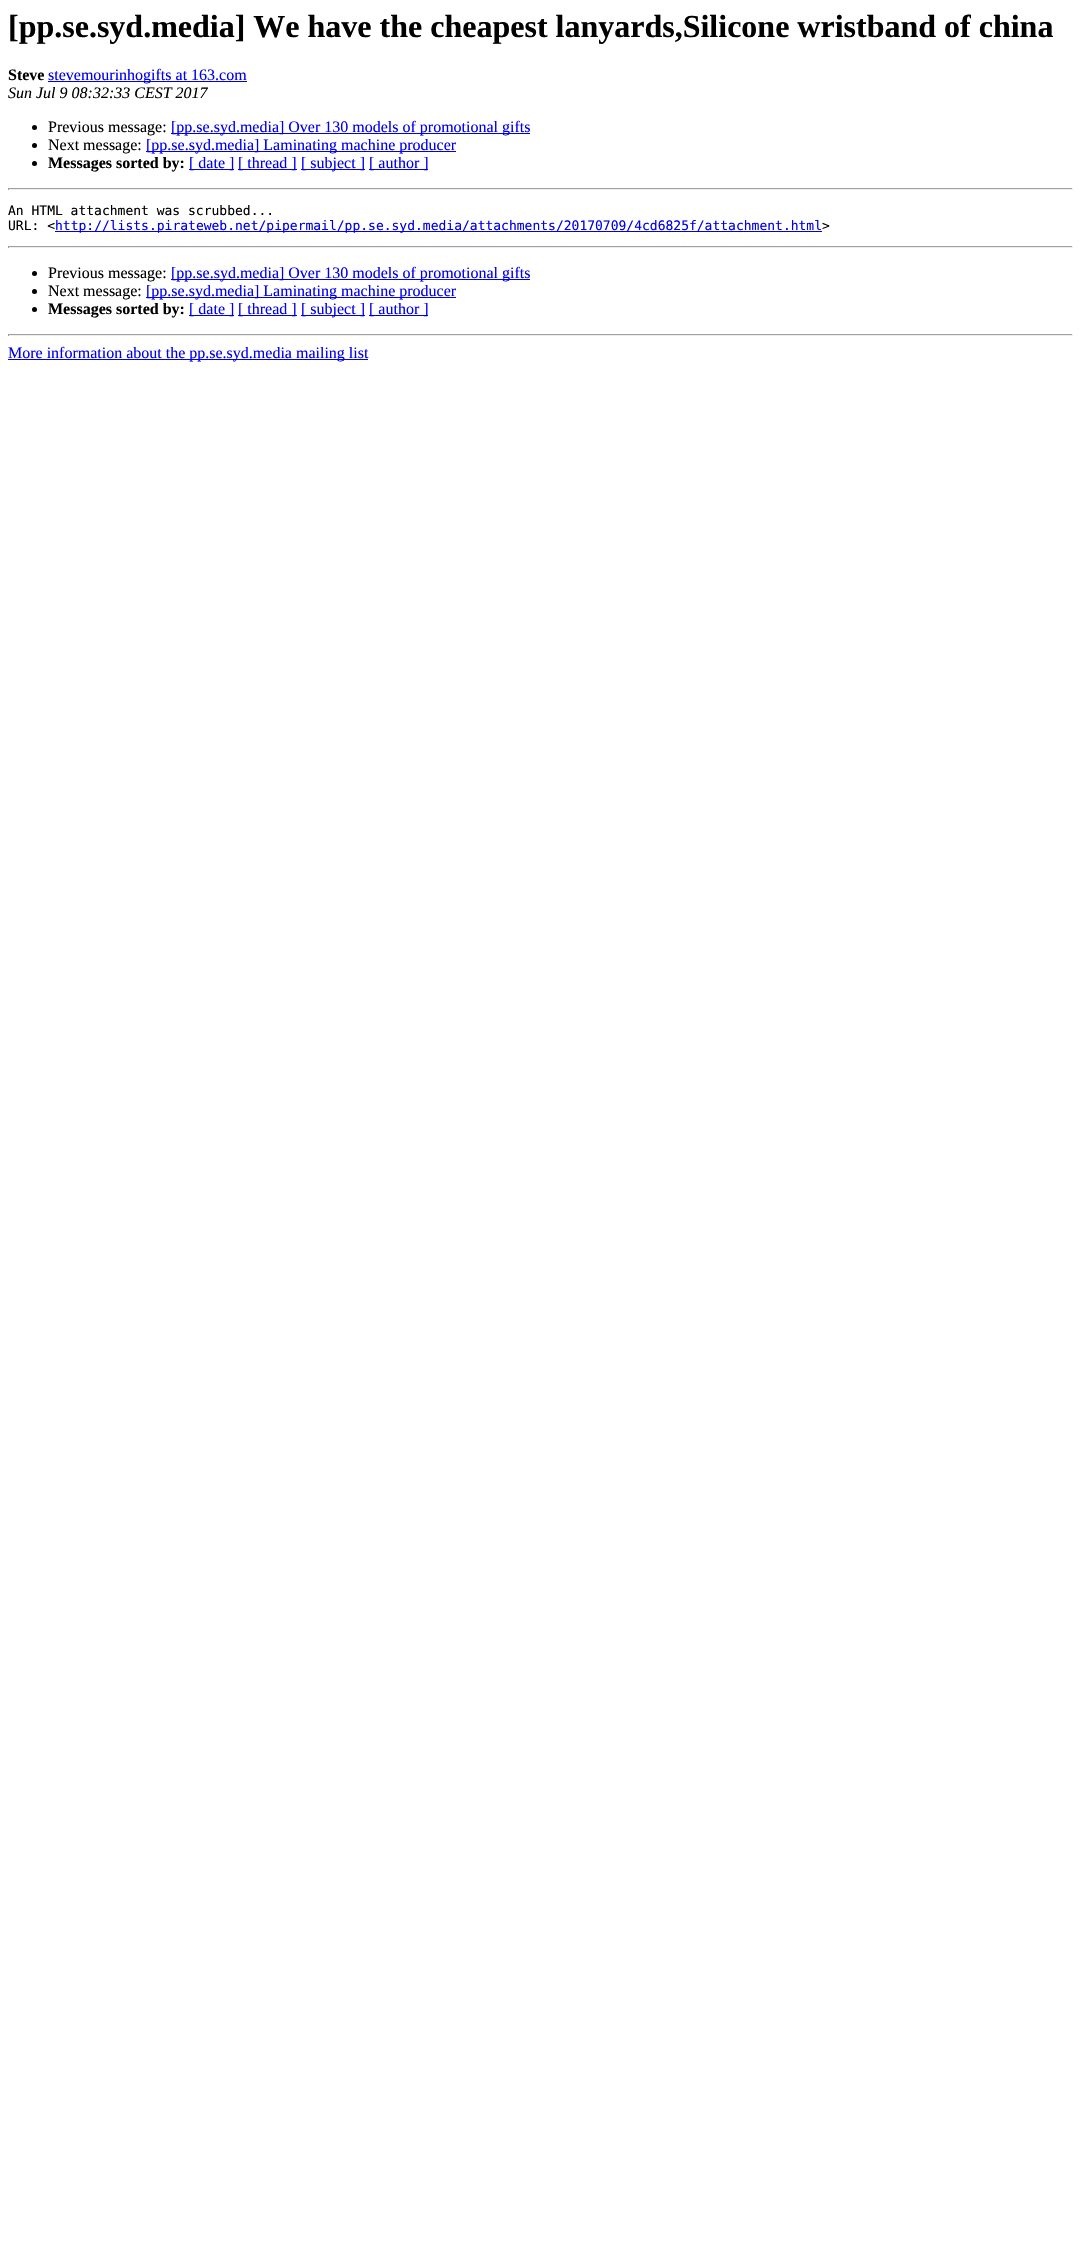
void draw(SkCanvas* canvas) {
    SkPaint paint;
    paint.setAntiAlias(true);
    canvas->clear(0xFFFFFFFF);
    SkFont font1(fontMgr->matchFamilyStyle("Liberation Serif", SkFontStyle::Bold()), 32);
    font1.setSubpixel(true);
    paint.setColor(0xFF000000);
    canvas->drawString("[pp.se.syd.media] We have the cheapest lanyards,Silicone wristband of china", 8, 37, font1, paint);
    SkFont font2(fontMgr->matchFamilyStyle("Liberation Serif", SkFontStyle::Bold()), 16);
    font2.setSubpixel(true);
    canvas->drawString("Steve", 8, 80, font2, paint);
    paint.setColor(0xFF0000EE);
    canvas->drawRect(SkRect::MakeXYWH(48, 81, 199, 1), paint);
    SkFont font3(fontMgr->matchFamilyStyle("Liberation Serif", SkFontStyle::Normal()), 16);
    font3.setSubpixel(true);
    canvas->drawString("stevemourinhogifts at 163.com", 48, 80, font3, paint);
    SkFont font4(fontMgr->matchFamilyStyle("Liberation Serif", SkFontStyle::Italic()), 16);
    font4.setSubpixel(true);
    paint.setColor(0xFF000000);
    canvas->drawString("Sun Jul 9 08:32:33 CEST 2017", 8, 98, font4, paint);
    canvas->drawCircle(34.5f, 127.5f, 2.5f, paint);
    canvas->drawString("Previous message:", 48, 132, font3, paint);
    paint.setColor(0xFF0000EE);
    canvas->drawRect(SkRect::MakeXYWH(171, 133, 359, 1), paint);
    canvas->drawString("[pp.se.syd.media] Over 130 models of promotional gifts", 171, 132, font3, paint);
    paint.setColor(0xFF000000);
    canvas->drawCircle(34.5f, 145.5f, 2.5f, paint);
    canvas->drawString("Next message:", 48, 150, font3, paint);
    paint.setColor(0xFF0000EE);
    canvas->drawRect(SkRect::MakeXYWH(146, 151, 310, 1), paint);
    canvas->drawString("[pp.se.syd.media] Laminating machine producer", 146, 150, font3, paint);
    paint.setColor(0xFF000000);
    canvas->drawCircle(34.5f, 163.5f, 2.5f, paint);
    canvas->drawString("Messages sorted by:", 48, 168, font2, paint);
    paint.setColor(0xFF0000EE);
    canvas->drawRect(SkRect::MakeXYWH(189, 169, 45, 1), paint);
    canvas->drawString("[ date ]", 189, 168, font3, paint);
    canvas->drawRect(SkRect::MakeXYWH(238, 169, 59, 1), paint);
    canvas->drawString("[ thread ]", 238, 168, font3, paint);
    canvas->drawRect(SkRect::MakeXYWH(301, 169, 64, 1), paint);
    canvas->drawString("[ subject ]", 301, 168, font3, paint);
    canvas->drawRect(SkRect::MakeXYWH(369, 169, 59, 1), paint);
    canvas->drawString("[ author ]", 369, 168, font3, paint);
    paint.setColor(0xFF9F9F9F);
    canvas->drawRect(SkRect::MakeXYWH(8, 188, 1065, 1), paint);
    paint.setColor(0xFFEEEEEE);
    canvas->drawRect(SkRect::MakeXYWH(1072, 188, 1, 2), paint);
    canvas->drawRect(SkRect::MakeXYWH(8, 189, 1065, 1), paint);
    paint.setColor(0xFF9F9F9F);
    canvas->drawRect(SkRect::MakeXYWH(8, 188, 1, 2), paint);
    SkFont font5(fontMgr->matchFamilyStyle("DejaVu Sans Mono", SkFontStyle::Normal()), 13);
    font5.setSubpixel(true);
    paint.setColor(0xFF000000);
    canvas->drawString("An HTML attachment was scrubbed...", 8, 215, font5, paint);
    canvas->drawString("URL: <", 8, 230, font5, paint);
    paint.setColor(0xFF0000EE);
    canvas->drawRect(SkRect::MakeXYWH(55, 231, 767, 1), paint);
    canvas->drawString("http://lists.pirateweb.net/pipermail/pp.se.syd.media/attachments/20170709/4cd6825f/attachment.html", 55, 230, font5, paint);
    paint.setColor(0xFF000000);
    canvas->drawString(">", 822, 230, font5, paint);
    paint.setColor(0xFF9F9F9F);
    canvas->drawRect(SkRect::MakeXYWH(8, 246, 1065, 1), paint);
    paint.setColor(0xFFEEEEEE);
    canvas->drawRect(SkRect::MakeXYWH(1072, 246, 1, 2), paint);
    canvas->drawRect(SkRect::MakeXYWH(8, 247, 1065, 1), paint);
    paint.setColor(0xFF9F9F9F);
    canvas->drawRect(SkRect::MakeXYWH(8, 246, 1, 2), paint);
    paint.setColor(0xFF000000);
    canvas->drawCircle(34.5f, 273.5f, 2.5f, paint);
    canvas->drawString("Previous message:", 48, 278, font3, paint);
    paint.setColor(0xFF0000EE);
    canvas->drawRect(SkRect::MakeXYWH(171, 279, 359, 1), paint);
    canvas->drawString("[pp.se.syd.media] Over 130 models of promotional gifts", 171, 278, font3, paint);
    paint.setColor(0xFF000000);
    canvas->drawCircle(34.5f, 291.5f, 2.5f, paint);
    canvas->drawString("Next message:", 48, 296, font3, paint);
    paint.setColor(0xFF0000EE);
    canvas->drawRect(SkRect::MakeXYWH(146, 297, 310, 1), paint);
    canvas->drawString("[pp.se.syd.media] Laminating machine producer", 146, 296, font3, paint);
    paint.setColor(0xFF000000);
    canvas->drawCircle(34.5f, 309.5f, 2.5f, paint);
    canvas->drawString("Messages sorted by:", 48, 314, font2, paint);
    paint.setColor(0xFF0000EE);
    canvas->drawRect(SkRect::MakeXYWH(189, 315, 45, 1), paint);
    canvas->drawString("[ date ]", 189, 314, font3, paint);
    canvas->drawRect(SkRect::MakeXYWH(238, 315, 59, 1), paint);
    canvas->drawString("[ thread ]", 238, 314, font3, paint);
    canvas->drawRect(SkRect::MakeXYWH(301, 315, 64, 1), paint);
    canvas->drawString("[ subject ]", 301, 314, font3, paint);
    canvas->drawRect(SkRect::MakeXYWH(369, 315, 59, 1), paint);
    canvas->drawString("[ author ]", 369, 314, font3, paint);
    paint.setColor(0xFF9F9F9F);
    canvas->drawRect(SkRect::MakeXYWH(8, 334, 1065, 1), paint);
    paint.setColor(0xFFEEEEEE);
    canvas->drawRect(SkRect::MakeXYWH(1072, 334, 1, 2), paint);
    canvas->drawRect(SkRect::MakeXYWH(8, 335, 1065, 1), paint);
    paint.setColor(0xFF9F9F9F);
    canvas->drawRect(SkRect::MakeXYWH(8, 334, 1, 2), paint);
    paint.setColor(0xFF0000EE);
    canvas->drawRect(SkRect::MakeXYWH(8, 359, 360, 1), paint);
    canvas->drawString("More information about the pp.se.syd.media mailing list", 8, 358, font3, paint);
}
